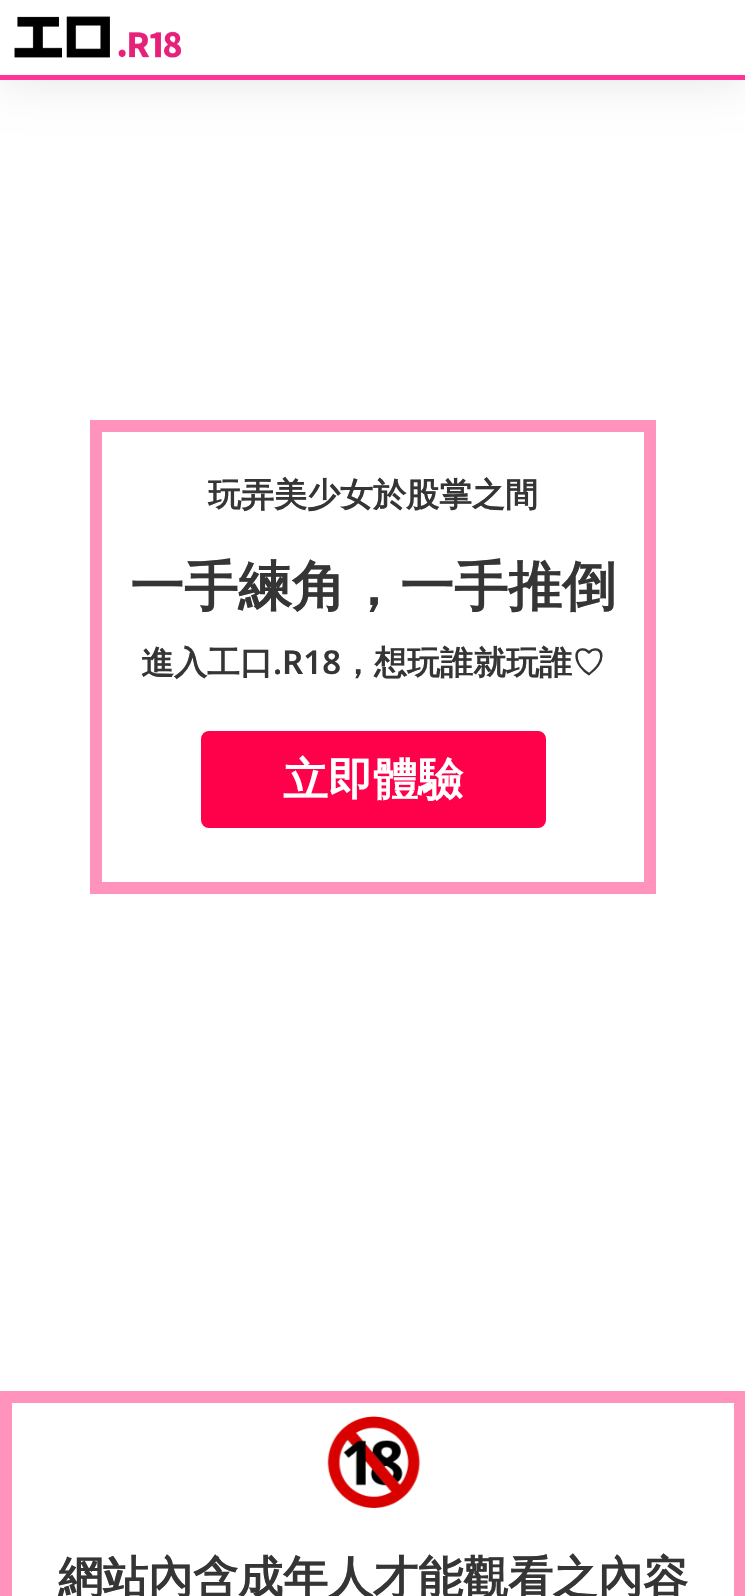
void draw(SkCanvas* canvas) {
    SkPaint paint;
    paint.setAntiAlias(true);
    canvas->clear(0xFFFFFFFF);
    paint.setColor(0x1A000000);
    paint.setMaskFilter(SkMaskFilter::MakeBlur(kNormal_SkBlurStyle, 22.5f));
    canvas->drawRect(SkRect::MakeXYWH(0, 2, 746, 79), paint);
    paint.setMaskFilter(nullptr);
    paint.setColor(0xFFFFFFFF);
    canvas->drawRect(SkRect::MakeXYWH(0, 0, 745, 75), paint);
    paint.setColor(0xFFFF3399);
    canvas->drawRect(SkRect::MakeXYWH(0, 75, 745, 5), paint);
    canvas->drawImageRect(SkImages::DeferredFromEncodedData(SkData::MakeFromFileName("img1.png")), SkRect::MakeXYWH(14, 16, 167, 42), SkSamplingOptions());
    paint.setStyle(SkPaint::kStroke_Style);
    paint.setStrokeWidth(12);
    paint.setColor(0xFFFF93BC);
    canvas->drawRect(SkRect::MakeXYWH(96, 426, 554, 462), paint);
    SkFont font1(fontMgr->matchFamilyStyle("WenQuanYi Zen Hei", SkFontStyle::Bold()), 33);
    font1.setSubpixel(true);
    paint.setStyle(SkPaint::kFill_Style);
    paint.setColor(0xFF353535);
    canvas->drawString("玩弄美少女於股掌之間", 208, 506, font1, paint);
    SkFont font2(fontMgr->matchFamilyStyle("WenQuanYi Zen Hei", SkFontStyle::Bold()), 54);
    font2.setSubpixel(true);
    canvas->drawString("一手練角，一手推倒", 130, 605, font2, paint);
    canvas->drawString("進入工口", 141, 674, font1, paint);
    SkFont font3(fontMgr->matchFamilyStyle("Noto Sans", SkFontStyle(600, SkFontStyle::kNormal_Width, SkFontStyle::kUpright_Slant)), 33);
    font3.setSubpixel(true);
    canvas->drawString(".R18", 273, 674, font3, paint);
    canvas->drawString("，想玩誰就玩誰♡", 341, 674, font1, paint);
    paint.setColor(0xFFFF004A);
    canvas->drawRoundRect(SkRect::MakeXYWH(202, 732, 343, 95), 7, 7, paint);
    paint.setStyle(SkPaint::kStroke_Style);
    paint.setStrokeWidth(2);
    canvas->drawRoundRect(SkRect::MakeXYWH(202, 732, 343, 95), 7, 7, paint);
    SkFont font4(fontMgr->matchFamilyStyle("WenQuanYi Zen Hei", SkFontStyle::Bold()), 45);
    font4.setSubpixel(true);
    paint.setStyle(SkPaint::kFill_Style);
    paint.setColor(0xFFFFFFFF);
    canvas->drawString("立即體驗", 283, 795, font4, paint);
    paint.setStyle(SkPaint::kStroke_Style);
    paint.setStrokeWidth(12);
    paint.setColor(0xFFFF93BC);
    canvas->drawRect(SkRect::MakeXYWH(6, 1397, 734, 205), paint);
    canvas->drawImageRect(SkImages::DeferredFromEncodedData(SkData::MakeFromFileName("img2.png")), SkRect::MakeXYWH(327, 1416, 94, 92), SkSamplingOptions());
    paint.setStyle(SkPaint::kFill_Style);
    paint.setColor(0xFF353535);
    canvas->drawString("網站內含成年人才能觀看之內容", 58, 1593, font4, paint);
}
